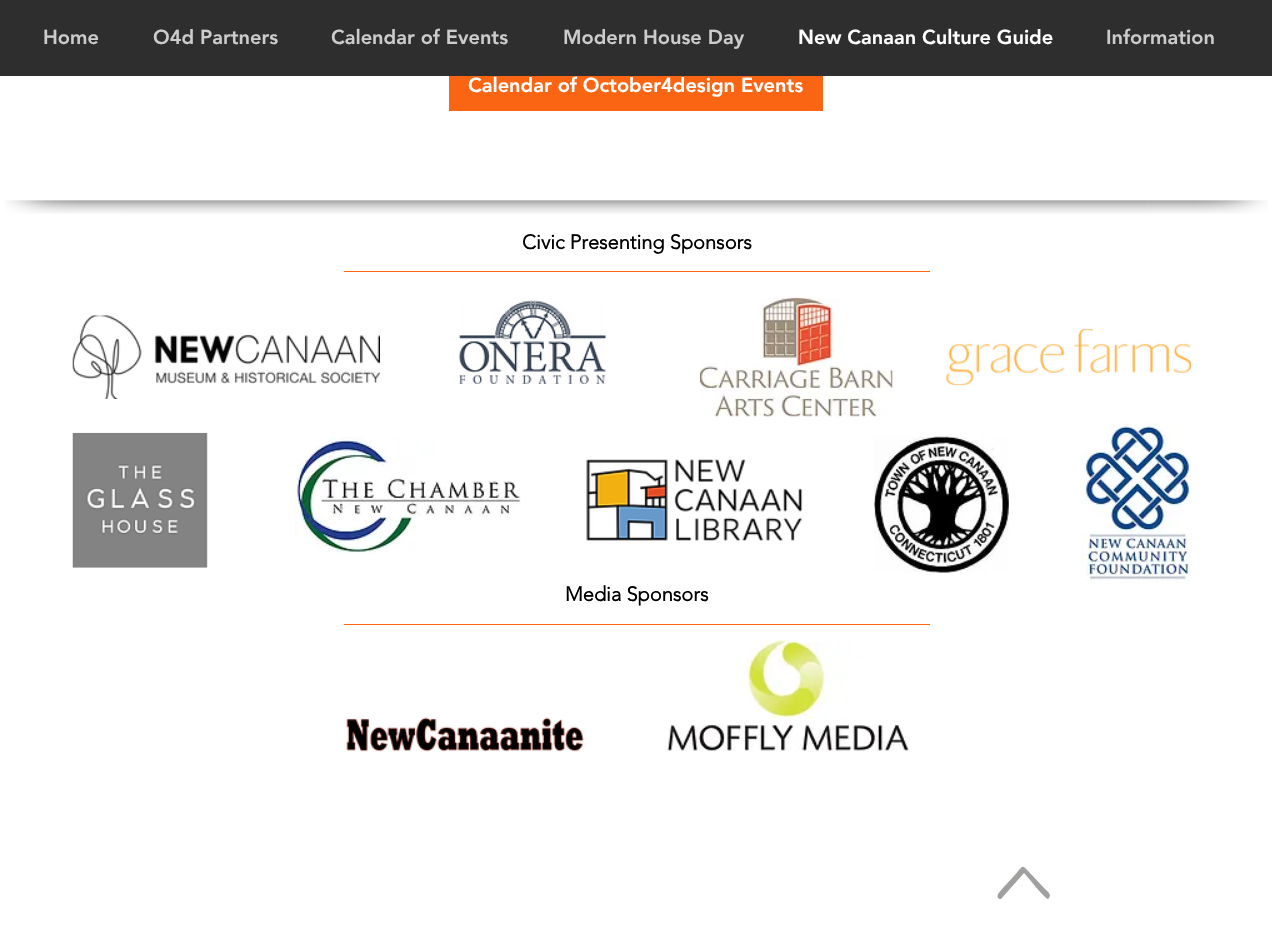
void draw(SkCanvas* canvas) {
    SkPaint paint;
    paint.setAntiAlias(true);
    canvas->clear(0xFFFFFFFF);
    paint.setColor(0xFF2F2E2E);
    canvas->drawRect(SkRect::MakeXYWH(0, 0, 1272, 76), paint);
    SkFont font1(fontMgr->matchFamilyStyle("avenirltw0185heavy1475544", SkFontStyle(900, SkFontStyle::kNormal_Width, SkFontStyle::kUpright_Slant)), 20);
    font1.setSubpixel(true);
    paint.setColor(0xFFCCCCCC);
    canvas->drawString("Home", 43, 44, font1, paint);
    canvas->drawString("O4d Partners", 153, 44, font1, paint);
    canvas->drawString("Calendar of Events", 331, 44, font1, paint);
    canvas->drawString("Modern House Day", 563, 44, font1, paint);
    paint.setColor(0xFFFFFFFF);
    canvas->drawString("New Canaan Culture Guide", 798, 44, font1, paint);
    paint.setColor(0xFFCCCCCC);
    canvas->drawString("Information", 1106, 44, font1, paint);
    paint.setColor(0xFFFA6514);
    canvas->drawRect(SkRect::MakeXYWH(449, 76, 374, 35), paint);
    paint.setColor(0xFFFFFFFF);
    canvas->drawString("Calendar of October4design Events", 468, 92, font1, paint);
    canvas->drawImageRect(SkImages::DeferredFromEncodedData(SkData::MakeFromFileName("img1.png")), SkRect::MakeXYWH(5, 200, 120, 14), SkSamplingOptions());
    canvas->drawImageRect(SkImages::DeferredFromEncodedData(SkData::MakeFromFileName("img2.png")), SkRect::MakeXYWH(125, 200, 1023, 14), SkSamplingOptions());
    canvas->drawImageRect(SkImages::DeferredFromEncodedData(SkData::MakeFromFileName("img3.png")), SkRect::MakeXYWH(1147, 200, 121, 14), SkSamplingOptions());
    SkFont font2(fontMgr->matchFamilyStyle("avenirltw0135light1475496", SkFontStyle::Bold()), 20);
    font2.setSubpixel(true);
    paint.setColor(0xFF000000);
    canvas->drawString("Civic Presenting Sponsors", 522, 249, font2, paint);
    paint.setColor(0xFFFA6514);
    canvas->drawRect(SkRect::MakeXYWH(344, 271, 586, 1), paint);
    canvas->drawImageRect(SkImages::DeferredFromEncodedData(SkData::MakeFromFileName("img4.png")), SkRect::MakeXYWH(72, 315, 308, 84), SkSamplingOptions());
    canvas->drawImageRect(SkImages::DeferredFromEncodedData(SkData::MakeFromFileName("img5.png")), SkRect::MakeXYWH(458, 300, 149, 84), SkSamplingOptions());
    canvas->drawImageRect(SkImages::DeferredFromEncodedData(SkData::MakeFromFileName("img6.png")), SkRect::MakeXYWH(700, 297, 193, 120), SkSamplingOptions());
    canvas->drawImageRect(SkImages::DeferredFromEncodedData(SkData::MakeFromFileName("img7.png")), SkRect::MakeXYWH(946, 329, 246, 57), SkSamplingOptions());
    canvas->drawImageRect(SkImages::DeferredFromEncodedData(SkData::MakeFromFileName("img8.png")), SkRect::MakeXYWH(72, 432, 136, 136), SkSamplingOptions());
    canvas->drawImageRect(SkImages::DeferredFromEncodedData(SkData::MakeFromFileName("img9.png")), SkRect::MakeXYWH(295, 437, 226, 118), SkSamplingOptions());
    canvas->drawImageRect(SkImages::DeferredFromEncodedData(SkData::MakeFromFileName("img10.png")), SkRect::MakeXYWH(586, 459, 217, 82), SkSamplingOptions());
    canvas->drawImageRect(SkImages::DeferredFromEncodedData(SkData::MakeFromFileName("img11.png")), SkRect::MakeXYWH(873, 436, 136, 137), SkSamplingOptions());
    canvas->drawImageRect(SkImages::DeferredFromEncodedData(SkData::MakeFromFileName("img12.png")), SkRect::MakeXYWH(1080, 422, 112, 161), SkSamplingOptions());
    paint.setColor(0xFF000000);
    canvas->drawString("Media Sponsors", 565, 601, font2, paint);
    paint.setColor(0xFFFA6514);
    canvas->drawRect(SkRect::MakeXYWH(344, 624, 586, 1), paint);
    canvas->drawImageRect(SkImages::DeferredFromEncodedData(SkData::MakeFromFileName("img13.png")), SkRect::MakeXYWH(346, 717, 238, 35), SkSamplingOptions());
    canvas->drawImageRect(SkImages::DeferredFromEncodedData(SkData::MakeFromFileName("img14.png")), SkRect::MakeXYWH(664, 640, 245, 111), SkSamplingOptions());
    paint.setColor(0xFFA0A09F);
    canvas->drawPath(SkPathBuilder().moveTo(1048, 899).cubicTo(1045, 899, 1027, 876, 1024, 873).lineTo(1001, 899).cubicTo(1000, 899, 999, 899, 998, 898).cubicTo(996, 894, 1001, 891, 1002, 889).lineTo(1014, 876).cubicTo(1023, 866, 1021, 863, 1029, 872).lineTo(1045, 889).cubicTo(1047, 891, 1052, 894, 1049, 898).close().detach(), paint);
}
